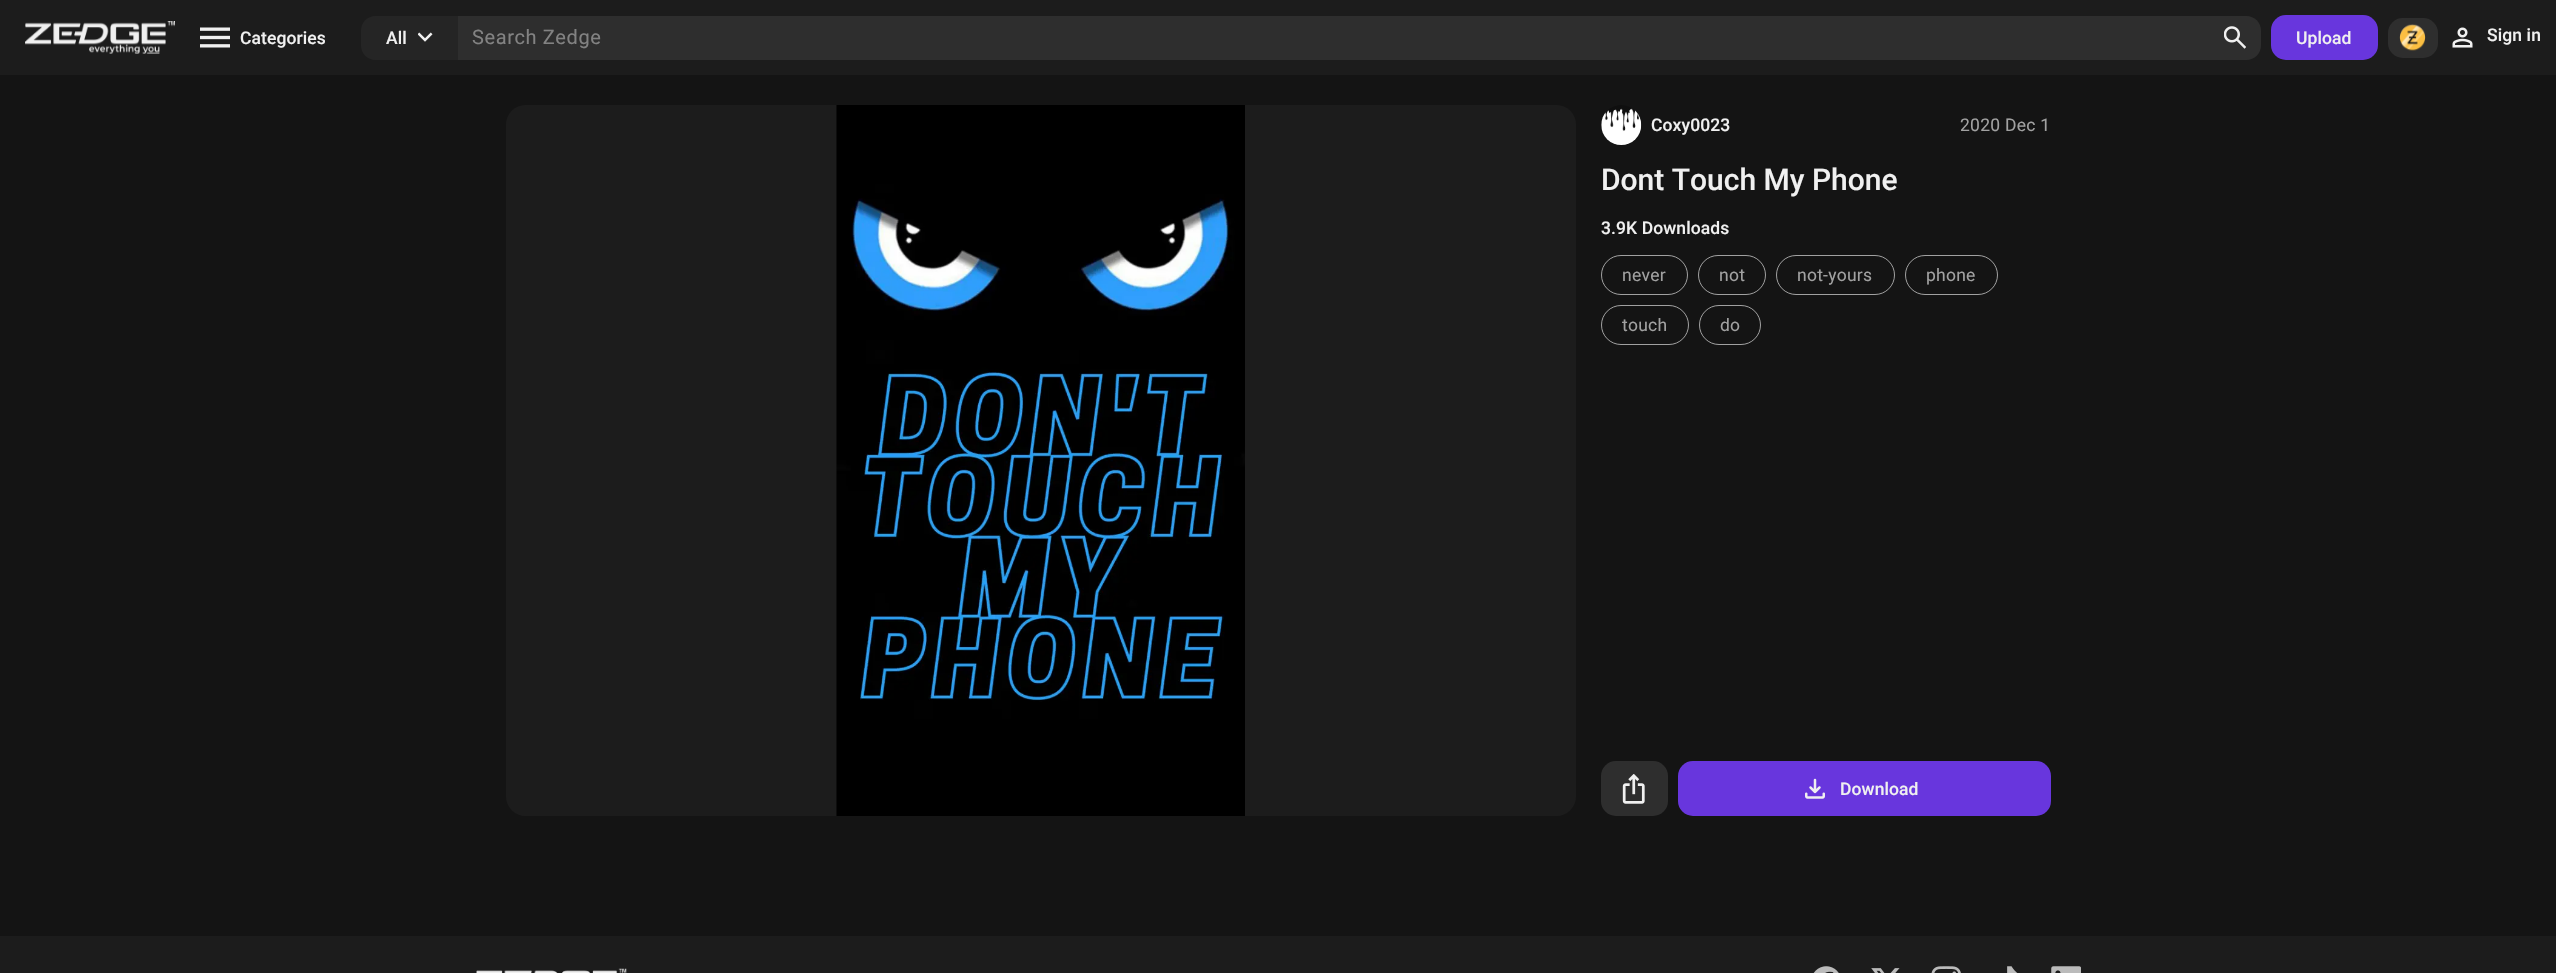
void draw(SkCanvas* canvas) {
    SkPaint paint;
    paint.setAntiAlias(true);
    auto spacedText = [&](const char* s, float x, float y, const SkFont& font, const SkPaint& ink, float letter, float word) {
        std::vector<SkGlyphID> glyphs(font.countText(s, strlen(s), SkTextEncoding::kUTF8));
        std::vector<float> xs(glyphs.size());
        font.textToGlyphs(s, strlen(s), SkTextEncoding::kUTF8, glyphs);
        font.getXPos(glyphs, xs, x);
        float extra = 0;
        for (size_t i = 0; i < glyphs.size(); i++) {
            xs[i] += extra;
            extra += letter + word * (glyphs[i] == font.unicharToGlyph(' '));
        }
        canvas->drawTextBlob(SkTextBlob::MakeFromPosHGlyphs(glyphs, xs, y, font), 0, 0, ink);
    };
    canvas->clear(0xFF141414);
    paint.setColor(0xFF1C1C1C);
    canvas->drawRect(SkRect::MakeXYWH(0, 0, 2556, 75), paint);
    canvas->drawImageRect(SkImages::DeferredFromEncodedData(SkData::MakeFromFileName("img1.png")), SkRect::MakeXYWH(25, 21, 150, 24), SkSamplingOptions());
    canvas->drawImageRect(SkImages::DeferredFromEncodedData(SkData::MakeFromFileName("img2.png")), SkRect::MakeXYWH(89, 44, 71, 10), SkSamplingOptions());
    canvas->drawImageRect(SkImages::DeferredFromEncodedData(SkData::MakeFromFileName("img3.png")), SkRect::MakeXYWH(200, 27, 30, 21), SkSamplingOptions());
    SkFont font1(fontMgr->matchFamilyStyle("Roboto", SkFontStyle(500, SkFontStyle::kNormal_Width, SkFontStyle::kUpright_Slant)), 17.5f);
    font1.setSubpixel(true);
    paint.setColor(0xFFF0F0F0);
    spacedText("Categories", 240, 44, font1, paint, 0.1f, 0);
    paint.setColor(0xFF252525);
    canvas->drawPath(SkPathBuilder().moveTo(376, 16).lineTo(458, 16).lineTo(458, 60).lineTo(376, 60).cubicTo(367.5f, 60, 361, 53.5f, 361, 45).lineTo(361, 31).cubicTo(361, 22.5f, 367.5f, 16, 376, 16).close().detach(), paint);
    paint.setColor(0xFFF0F0F0);
    spacedText("All", 386, 44, font1, paint, 0.1f, 0);
    canvas->drawImageRect(SkImages::DeferredFromEncodedData(SkData::MakeFromFileName("img4.png")), SkRect::MakeXYWH(418, 32, 15, 10), SkSamplingOptions());
    paint.setColor(0xFF2E2E2E);
    canvas->drawPath(SkPathBuilder().moveTo(458, 16).lineTo(2246, 16).cubicTo(2254.5f, 16, 2261, 22.5f, 2261, 31).lineTo(2261, 45).cubicTo(2261, 53.5f, 2254.5f, 60, 2246, 60).lineTo(458, 60).close().detach(), paint);
    SkFont font2(fontMgr->matchFamilyStyle("Roboto", SkFontStyle::Normal()), 20);
    font2.setSubpixel(true);
    paint.setColor(0xFF828282);
    spacedText("Search Zedge", 472, 44, font2, paint, 0.6f, 0);
    canvas->drawImageRect(SkImages::DeferredFromEncodedData(SkData::MakeFromFileName("img5.png")), SkRect::MakeXYWH(2224, 26, 22, 23), SkSamplingOptions());
    paint.setColor(0xFF6836DD);
    canvas->drawRoundRect(SkRect::MakeXYWH(2271, 15, 107, 45), 15, 15, paint);
    paint.setColor(0xFFF0F0F0);
    spacedText("Upload", 2296, 44, font1, paint, 0.1f, 0);
    paint.setColor(0xFF2E2E2E);
    canvas->drawRoundRect(SkRect::MakeXYWH(2388, 18, 50, 40), 15, 15, paint);
    canvas->drawImageRect(SkImages::DeferredFromEncodedData(SkData::MakeFromFileName("img6.png")), SkRect::MakeXYWH(2399, 24, 27, 27), SkSamplingOptions());
    canvas->drawImageRect(SkImages::DeferredFromEncodedData(SkData::MakeFromFileName("img7.png")), SkRect::MakeXYWH(2452, 27, 21, 21), SkSamplingOptions());
    paint.setColor(0xFFF0F0F0);
    spacedText("Sign in", 2487, 41, font1, paint, 0.1f, 0);
    paint.setColor(0xFF1C1C1C);
    canvas->drawRoundRect(SkRect::MakeXYWH(506, 105, 1070, 711), 20, 20, paint);
    canvas->drawImageRect(SkImages::DeferredFromEncodedData(SkData::MakeFromFileName("img8.png")), SkRect::MakeXYWH(836, 105, 409, 711), SkSamplingOptions());
    canvas->drawImageRect(SkImages::DeferredFromEncodedData(SkData::MakeFromFileName("img9.png")), SkRect::MakeXYWH(1601, 105, 41, 40), SkSamplingOptions());
    paint.setColor(0xFFF0F0F0);
    spacedText("Coxy0023", 1651, 131, font1, paint, 0.1f, 0);
    SkFont font3(fontMgr->matchFamilyStyle("Roboto", SkFontStyle::Normal()), 17.5f);
    font3.setSubpixel(true);
    paint.setColor(0xFFA1A1A1);
    spacedText("2020 Dec 1", 1960, 131, font3, paint, 0.25f, 0);
    SkFont font4(fontMgr->matchFamilyStyle("Roboto", SkFontStyle(500, SkFontStyle::kNormal_Width, SkFontStyle::kUpright_Slant)), 30);
    font4.setSubpixel(true);
    paint.setColor(0xFFF0F0F0);
    canvas->drawString("Dont Touch My Phone", 1601, 190, font4, paint);
    spacedText("3.9K Downloads", 1601, 234, font1, paint, 0.1f, 0);
    paint.setStyle(SkPaint::kStroke_Style);
    paint.setStrokeWidth(1);
    paint.setColor(0xFFA1A1A1);
    canvas->drawRoundRect(SkRect::MakeXYWH(1601.5f, 255.5f, 86, 39), 19.5f, 19.5f, paint);
    paint.setStyle(SkPaint::kFill_Style);
    spacedText("never", 1622, 281, font3, paint, 0.25f, 0);
    paint.setStyle(SkPaint::kStroke_Style);
    canvas->drawRoundRect(SkRect::MakeXYWH(1698.5f, 255.5f, 67, 39), 19.5f, 19.5f, paint);
    paint.setStyle(SkPaint::kFill_Style);
    spacedText("not", 1719, 281, font3, paint, 0.25f, 0);
    paint.setStyle(SkPaint::kStroke_Style);
    canvas->drawRoundRect(SkRect::MakeXYWH(1776.5f, 255.5f, 118, 39), 19.5f, 19.5f, paint);
    paint.setStyle(SkPaint::kFill_Style);
    spacedText("not-yours", 1797, 281, font3, paint, 0.25f, 0);
    paint.setStyle(SkPaint::kStroke_Style);
    canvas->drawRoundRect(SkRect::MakeXYWH(1905.5f, 255.5f, 92, 39), 19.5f, 19.5f, paint);
    paint.setStyle(SkPaint::kFill_Style);
    spacedText("phone", 1926, 281, font3, paint, 0.25f, 0);
    paint.setStyle(SkPaint::kStroke_Style);
    canvas->drawRoundRect(SkRect::MakeXYWH(1601.5f, 305.5f, 87, 39), 19.5f, 19.5f, paint);
    paint.setStyle(SkPaint::kFill_Style);
    spacedText("touch", 1622, 331, font3, paint, 0.25f, 0);
    paint.setStyle(SkPaint::kStroke_Style);
    canvas->drawRoundRect(SkRect::MakeXYWH(1699.5f, 305.5f, 61, 39), 19.5f, 19.5f, paint);
    paint.setStyle(SkPaint::kFill_Style);
    spacedText("do", 1720, 331, font3, paint, 0.25f, 0);
    paint.setColor(0xFF2E2E2E);
    canvas->drawRoundRect(SkRect::MakeXYWH(1601, 761, 67, 55), 15, 15, paint);
    canvas->drawImageRect(SkImages::DeferredFromEncodedData(SkData::MakeFromFileName("img10.png")), SkRect::MakeXYWH(1622, 774, 23, 30), SkSamplingOptions());
    paint.setColor(0xFF6836DD);
    canvas->drawRoundRect(SkRect::MakeXYWH(1678, 761, 373, 55), 15, 15, paint);
    canvas->drawImageRect(SkImages::DeferredFromEncodedData(SkData::MakeFromFileName("img11.png")), SkRect::MakeXYWH(1805, 778, 20, 21), SkSamplingOptions());
    paint.setColor(0xFFF0F0F0);
    spacedText("Download", 1840, 795, font1, paint, 0.1f, 0);
    paint.setColor(0xFF1C1C1C);
    canvas->drawRect(SkRect::MakeXYWH(0, 936, 2556, 37), paint);
    canvas->drawImageRect(SkImages::DeferredFromEncodedData(SkData::MakeFromFileName("img12.png")), SkRect::MakeXYWH(476, 968, 151, 5), SkSamplingOptions());
    canvas->drawImageRect(SkImages::DeferredFromEncodedData(SkData::MakeFromFileName("img13.png")), SkRect::MakeXYWH(1813, 966, 26, 7), SkSamplingOptions());
    canvas->drawImageRect(SkImages::DeferredFromEncodedData(SkData::MakeFromFileName("img14.png")), SkRect::MakeXYWH(1871, 968, 29, 5), SkSamplingOptions());
    canvas->drawImageRect(SkImages::DeferredFromEncodedData(SkData::MakeFromFileName("img15.png")), SkRect::MakeXYWH(1931, 966, 30, 7), SkSamplingOptions());
    canvas->drawImageRect(SkImages::DeferredFromEncodedData(SkData::MakeFromFileName("img16.png")), SkRect::MakeXYWH(2007, 966, 11, 7), SkSamplingOptions());
    canvas->drawImageRect(SkImages::DeferredFromEncodedData(SkData::MakeFromFileName("img17.png")), SkRect::MakeXYWH(2051, 966, 30, 7), SkSamplingOptions());
}
